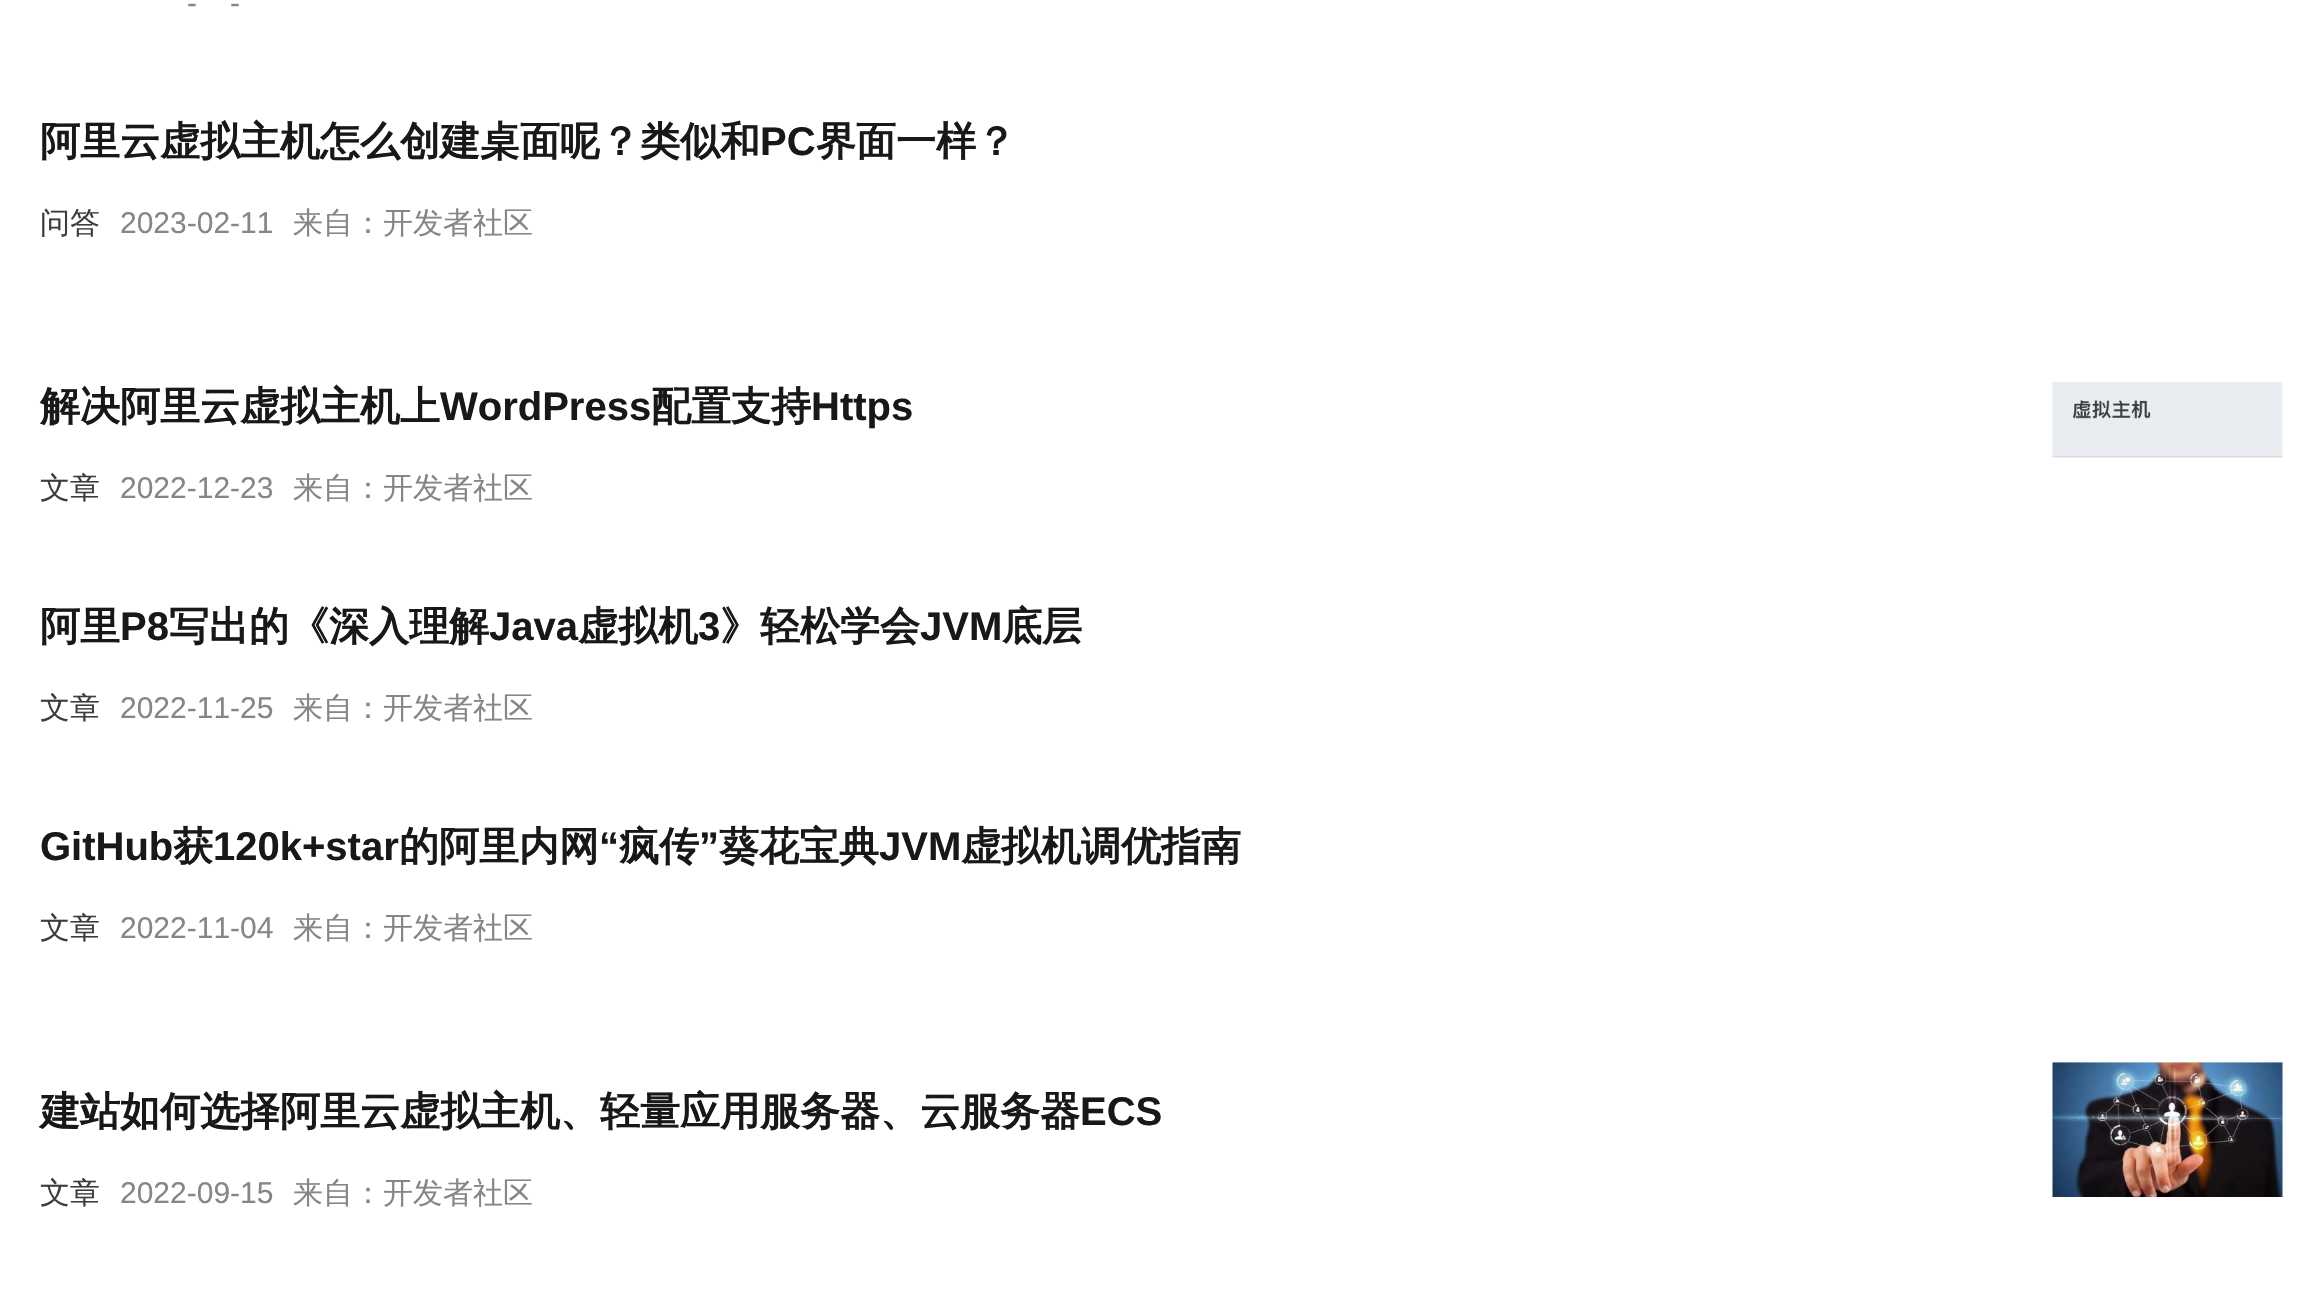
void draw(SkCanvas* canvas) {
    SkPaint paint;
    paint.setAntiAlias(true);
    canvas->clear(0xFFFFFFFF);
    SkFont font1(fontMgr->matchFamilyStyle("Liberation Sans", SkFontStyle::Normal()), 30);
    font1.setSubpixel(true);
    paint.setColor(0xFF868686);
    canvas->drawString("-", 187, 13, font1, paint);
    canvas->drawString("-", 230, 13, font1, paint);
    SkFont font2(fontMgr->matchFamilyStyle("WenQuanYi Zen Hei", SkFontStyle::Bold()), 40);
    font2.setSubpixel(true);
    paint.setColor(0xFF181818);
    canvas->drawString("阿里云虚拟主机怎么创建桌面呢？类似和", 40, 155, font2, paint);
    SkFont font3(fontMgr->matchFamilyStyle("Liberation Sans", SkFontStyle::Bold()), 40);
    font3.setSubpixel(true);
    canvas->drawString("PC", 760, 155, font3, paint);
    canvas->drawString("界面一样？", 816, 155, font2, paint);
    SkFont font4(fontMgr->matchFamilyStyle("WenQuanYi Zen Hei", SkFontStyle(500, SkFontStyle::kNormal_Width, SkFontStyle::kUpright_Slant)), 30);
    font4.setSubpixel(true);
    paint.setColor(0xFF3D3D3D);
    canvas->drawString("问答", 40, 233, font4, paint);
    paint.setColor(0xFF868686);
    canvas->drawString("2023-02-11", 120, 233, font1, paint);
    canvas->drawString("来自：开发者社区", 293, 233, font4, paint);
    paint.setColor(0xFF181818);
    canvas->drawString("解决阿里云虚拟主机上", 40, 420, font2, paint);
    canvas->drawString("WordPress", 440, 420, font3, paint);
    canvas->drawString("配置支持", 651, 420, font2, paint);
    canvas->drawString("Https", 811, 420, font3, paint);
    paint.setColor(0xFF3D3D3D);
    canvas->drawString("文章", 40, 498, font4, paint);
    paint.setColor(0xFF868686);
    canvas->drawString("2022-12-23", 120, 498, font1, paint);
    canvas->drawString("来自：开发者社区", 293, 498, font4, paint);
    canvas->drawImageRect(SkImages::DeferredFromEncodedData(SkData::MakeFromFileName("img1.png")), SkRect::MakeXYWH(2052, 382, 231, 76), SkSamplingOptions());
    paint.setColor(0xFF181818);
    canvas->drawString("阿里", 40, 640, font2, paint);
    canvas->drawString("P8", 120, 640, font3, paint);
    canvas->drawString("写出的《深入理解", 169, 640, font2, paint);
    canvas->drawString("Java", 489, 640, font3, paint);
    canvas->drawString("虚拟机", 578, 640, font2, paint);
    canvas->drawString("3", 698, 640, font3, paint);
    canvas->drawString("》轻松学会", 720, 640, font2, paint);
    canvas->drawString("JVM", 920, 640, font3, paint);
    canvas->drawString("底层", 1002, 640, font2, paint);
    paint.setColor(0xFF3D3D3D);
    canvas->drawString("文章", 40, 718, font4, paint);
    paint.setColor(0xFF868686);
    canvas->drawString("2022-11-25", 120, 718, font1, paint);
    canvas->drawString("来自：开发者社区", 293, 718, font4, paint);
    paint.setColor(0xFF181818);
    canvas->drawString("GitHub", 40, 860, font3, paint);
    canvas->drawString("获", 173, 860, font2, paint);
    canvas->drawString("120k+star", 213, 860, font3, paint);
    canvas->drawString("的阿里内网", 399, 860, font2, paint);
    canvas->drawString("“", 599, 860, font3, paint);
    canvas->drawString("疯传", 619, 860, font2, paint);
    canvas->drawString("”", 699, 860, font3, paint);
    canvas->drawString("葵花宝典", 719, 860, font2, paint);
    canvas->drawString("JVM", 879, 860, font3, paint);
    canvas->drawString("虚拟机调优指南", 961, 860, font2, paint);
    paint.setColor(0xFF3D3D3D);
    canvas->drawString("文章", 40, 938, font4, paint);
    paint.setColor(0xFF868686);
    canvas->drawString("2022-11-04", 120, 938, font1, paint);
    canvas->drawString("来自：开发者社区", 293, 938, font4, paint);
    paint.setColor(0xFF181818);
    canvas->drawString("建站如何选择阿里云虚拟主机、轻量应用服务器、云服务器", 40, 1125, font2, paint);
    canvas->drawString("ECS", 1080, 1125, font3, paint);
    paint.setColor(0xFF3D3D3D);
    canvas->drawString("文章", 40, 1203, font4, paint);
    paint.setColor(0xFF868686);
    canvas->drawString("2022-09-15", 120, 1203, font1, paint);
    canvas->drawString("来自：开发者社区", 293, 1203, font4, paint);
    canvas->drawImageRect(SkImages::DeferredFromEncodedData(SkData::MakeFromFileName("img2.png")), SkRect::MakeXYWH(2052, 1062, 231, 135), SkSamplingOptions());
}
